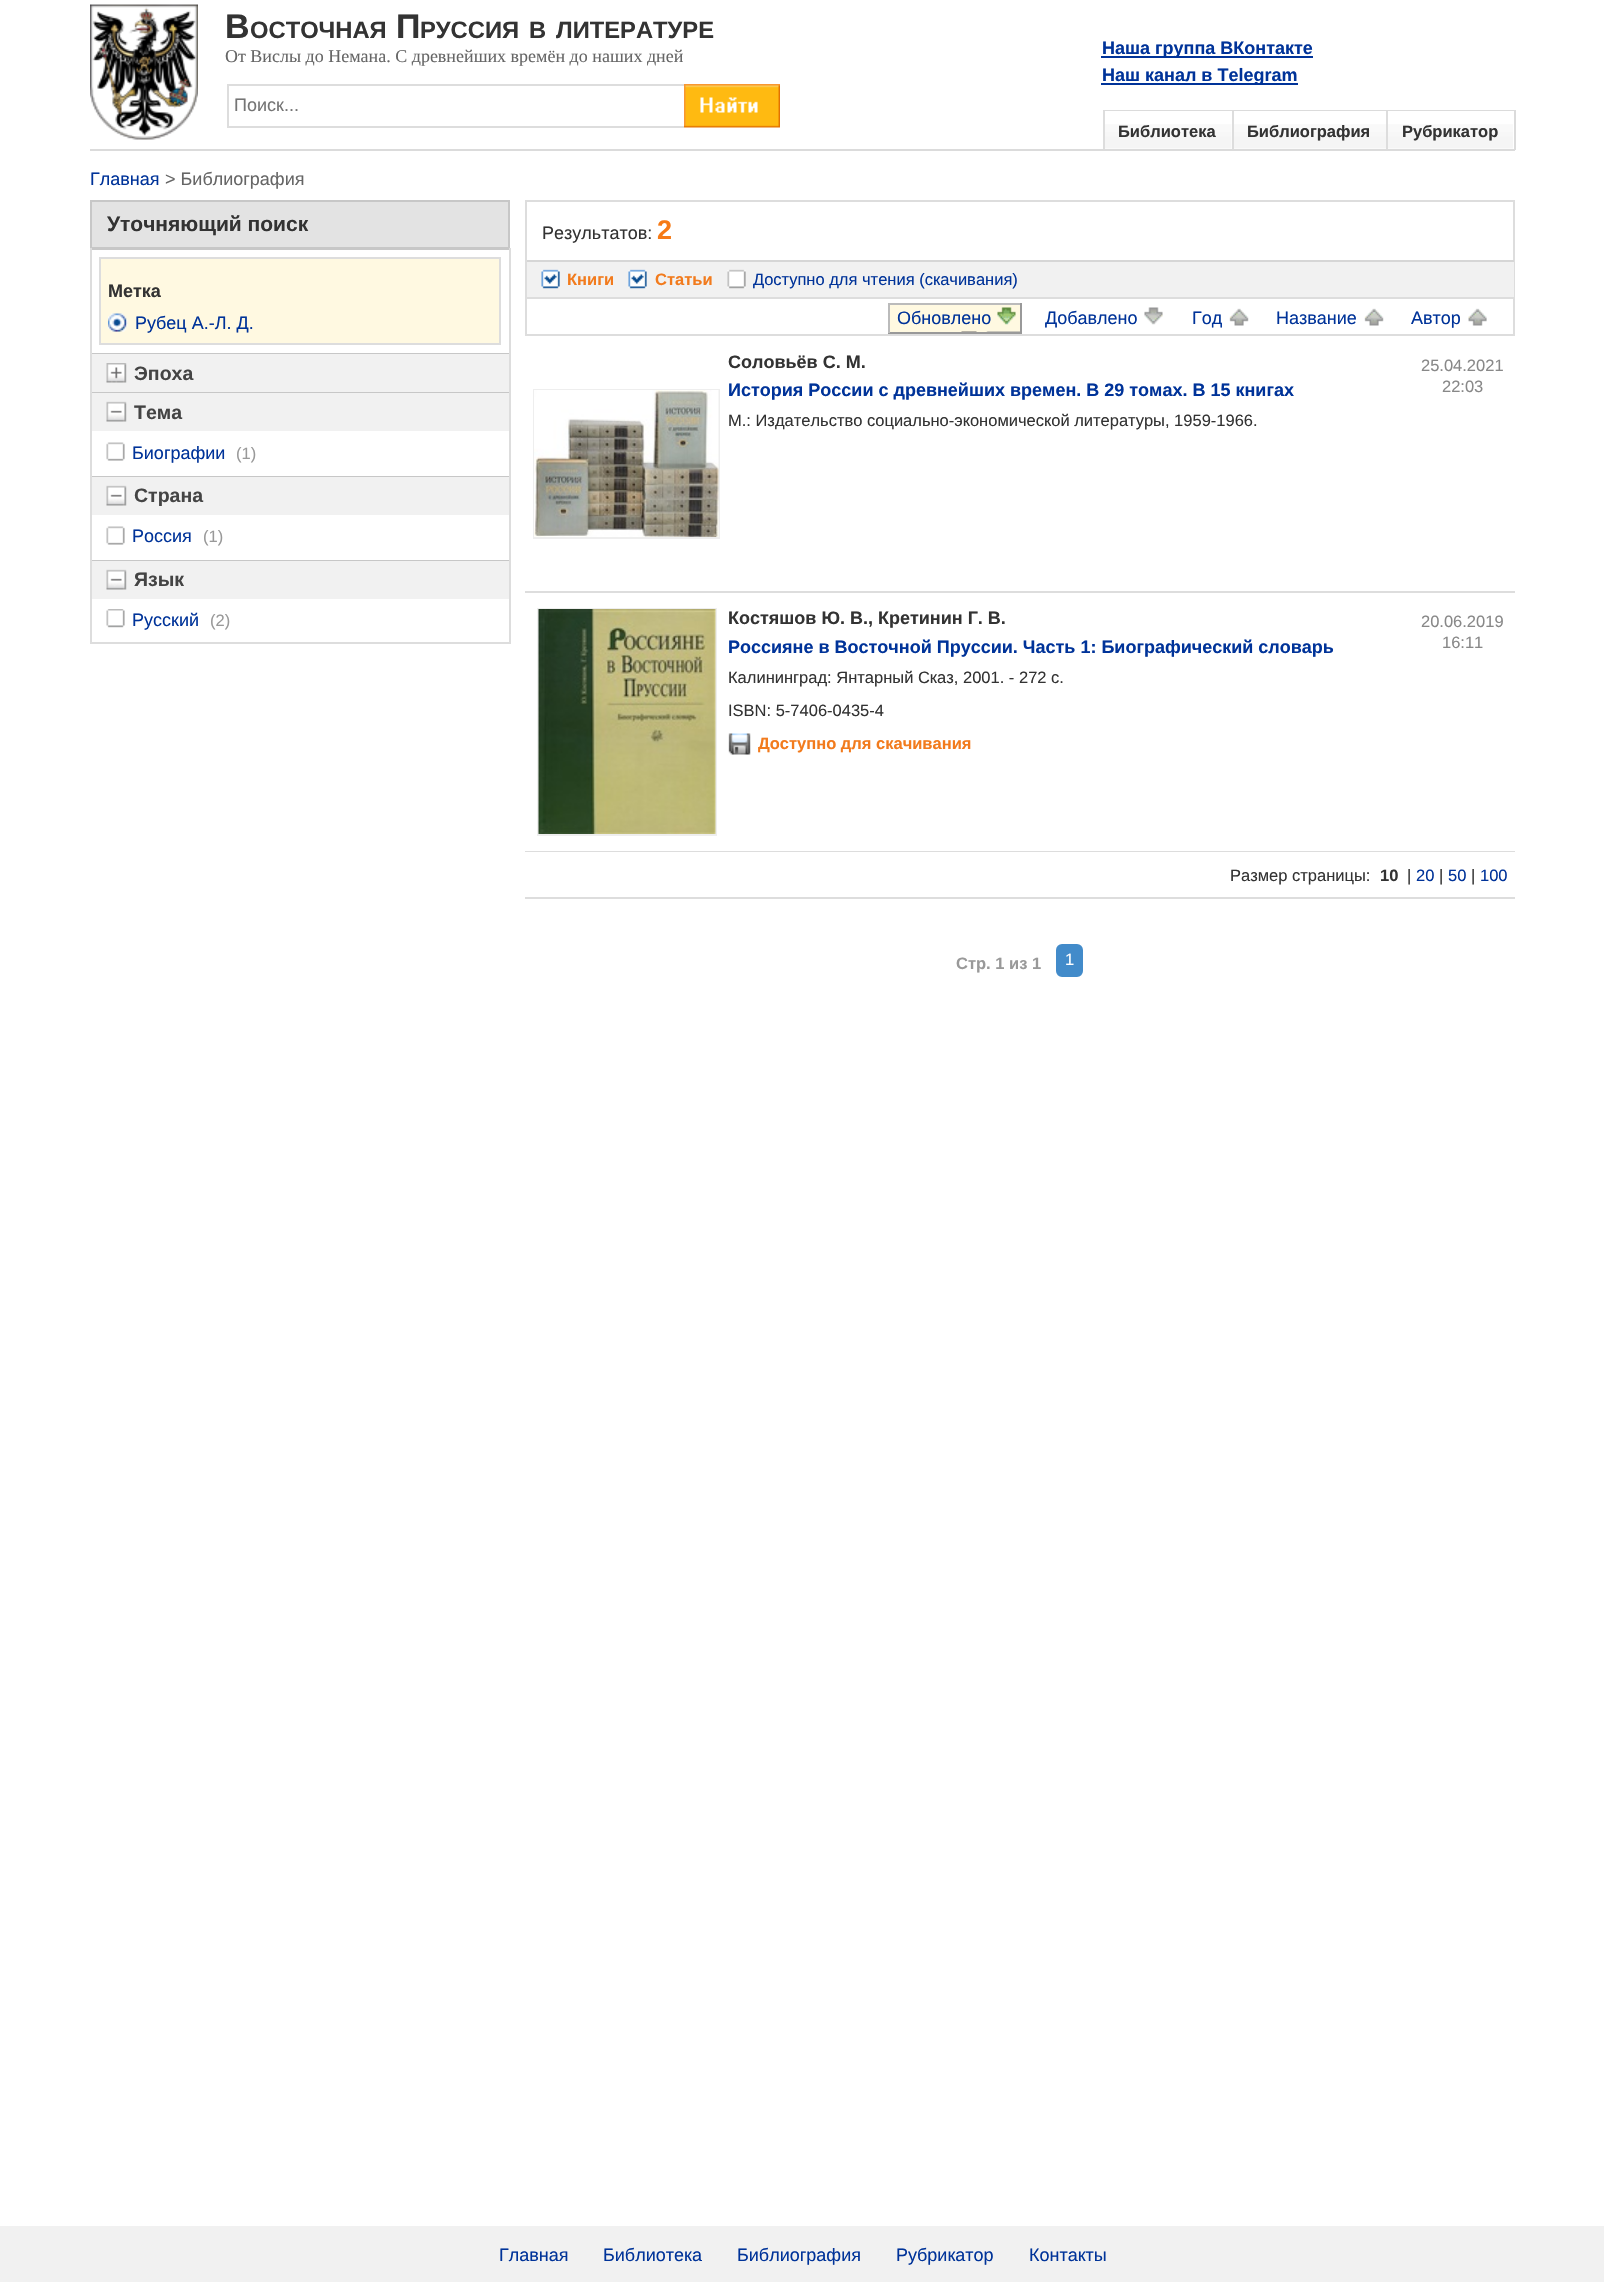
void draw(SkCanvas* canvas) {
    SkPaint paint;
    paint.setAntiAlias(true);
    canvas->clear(0xFFFFFFFF);
    paint.setColor(0xFFDBDBDB);
    canvas->drawRect(SkRect::MakeXYWH(90, 149, 1425, 2), paint);
    canvas->drawImageRect(SkImages::DeferredFromEncodedData(SkData::MakeFromFileName("img1.png")), SkRect::MakeXYWH(90, 4, 108, 136), SkSamplingOptions());
    SkFont font1(fontMgr->matchFamilyStyle("Liberation Sans", SkFontStyle::Bold()), 34);
    font1.setSubpixel(true);
    paint.setColor(0xFF333333);
    canvas->drawString("В", 225, 38, font1, paint);
    SkFont font2(fontMgr->matchFamilyStyle("Liberation Sans", SkFontStyle::Bold()), 23.75f);
    font2.setSubpixel(true);
    canvas->drawString("ОСТОЧНАЯ", 250, 38, font2, paint);
    canvas->drawString("П", 396, 38, font1, paint);
    canvas->drawString("РУССИЯ", 420, 38, font2, paint);
    canvas->drawString("В", 529, 38, font2, paint);
    canvas->drawString("ЛИТЕРАТУРЕ", 556, 38, font2, paint);
    SkFont font3(fontMgr->matchFamilyStyle("Liberation Serif", SkFontStyle::Normal()), 18);
    font3.setSubpixel(true);
    paint.setColor(0xFF666666);
    canvas->drawString("От Вислы до Немана. С древнейших времён до наших дней", 225, 62, font3, paint);
    paint.setColor(0xFFDDDDDD);
    canvas->drawRect(SkRect::MakeXYWH(227, 84, 457, 2), paint);
    canvas->drawRect(SkRect::MakeXYWH(227, 126, 457, 2), paint);
    canvas->drawRect(SkRect::MakeXYWH(227, 84, 2, 44), paint);
    SkFont font4(fontMgr->matchFamilyStyle("Liberation Sans", SkFontStyle::Normal()), 18);
    font4.setSubpixel(true);
    paint.setColor(0xFF757575);
    canvas->drawString("Поиск...", 234, 111, font4, paint);
    canvas->drawImageRect(SkImages::DeferredFromEncodedData(SkData::MakeFromFileName("img2.png")), SkRect::MakeXYWH(684, 84, 96, 44), SkSamplingOptions());
    paint.setColor(0xFF003399);
    canvas->drawRect(SkRect::MakeXYWH(1101, 56, 212, 2), paint);
    SkFont font5(fontMgr->matchFamilyStyle("Liberation Sans", SkFontStyle::Bold()), 18);
    font5.setSubpixel(true);
    canvas->drawString("Наша группа ВКонтакте", 1102, 54, font5, paint);
    canvas->drawRect(SkRect::MakeXYWH(1101, 83, 197, 2), paint);
    canvas->drawString("Наш канал в Telegram", 1102, 81, font5, paint);
    paint.setColor(0xFFDBDBDB);
    canvas->drawRect(SkRect::MakeXYWH(1103, 110, 412, 1), paint);
    canvas->drawRect(SkRect::MakeXYWH(1514, 110, 2, 40), paint);
    canvas->drawImageRect(SkImages::DeferredFromEncodedData(SkData::MakeFromFileName("img3.png")), SkRect::MakeXYWH(1105, 124, 127, 25), SkSamplingOptions());
    paint.setColor(0xFFDDDDDD);
    canvas->drawRect(SkRect::MakeXYWH(1103, 111, 2, 38), paint);
    SkFont font6(fontMgr->matchFamilyStyle("Liberation Sans", SkFontStyle::Bold()), 16.5f);
    font6.setSubpixel(true);
    paint.setColor(0xFF333333);
    canvas->drawString("Библиотека", 1118, 137, font6, paint);
    canvas->drawImageRect(SkImages::DeferredFromEncodedData(SkData::MakeFromFileName("img4.png")), SkRect::MakeXYWH(1234, 124, 152, 25), SkSamplingOptions());
    paint.setColor(0xFFDDDDDD);
    canvas->drawRect(SkRect::MakeXYWH(1232, 111, 2, 38), paint);
    paint.setColor(0xFF333333);
    canvas->drawString("Библиография", 1247, 137, font6, paint);
    canvas->drawImageRect(SkImages::DeferredFromEncodedData(SkData::MakeFromFileName("img5.png")), SkRect::MakeXYWH(1388, 124, 125, 25), SkSamplingOptions());
    paint.setColor(0xFFDDDDDD);
    canvas->drawRect(SkRect::MakeXYWH(1386, 111, 2, 38), paint);
    paint.setColor(0xFF333333);
    canvas->drawString("Рубрикатор", 1402, 137, font6, paint);
    paint.setColor(0xFF003399);
    canvas->drawString("Главная", 90, 185, font4, paint);
    paint.setColor(0xFF666666);
    canvas->drawString("> Библиография", 165, 185, font4, paint);
    paint.setColor(0xFFE3E3E3);
    canvas->drawRect(SkRect::MakeXYWH(91, 201, 418, 47), paint);
    paint.setStyle(SkPaint::kStroke_Style);
    paint.setStrokeWidth(2);
    paint.setColor(0xFFC7C7C7);
    canvas->drawRect(SkRect::MakeXYWH(91, 201, 418, 47), paint);
    SkFont font7(fontMgr->matchFamilyStyle("Liberation Sans", SkFontStyle::Bold()), 21);
    font7.setSubpixel(true);
    paint.setStyle(SkPaint::kFill_Style);
    paint.setColor(0xFF333333);
    canvas->drawString("Уточняющий поиск", 107, 231, font7, paint);
    paint.setColor(0xFFC7C7C7);
    canvas->drawRect(SkRect::MakeXYWH(90, 249, 420, 1), paint);
    paint.setColor(0xFFDDDDDD);
    canvas->drawRect(SkRect::MakeXYWH(509, 248, 2, 106), paint);
    canvas->drawRect(SkRect::MakeXYWH(90, 248, 2, 106), paint);
    paint.setColor(0xFFFFF9E1);
    canvas->drawRect(SkRect::MakeXYWH(100, 258, 400, 86), paint);
    paint.setStyle(SkPaint::kStroke_Style);
    paint.setColor(0xFFDDDDDD);
    canvas->drawRect(SkRect::MakeXYWH(100, 258, 400, 86), paint);
    paint.setStyle(SkPaint::kFill_Style);
    paint.setColor(0xFF333333);
    canvas->drawString("Метка", 108, 297, font5, paint);
    canvas->drawImageRect(SkImages::DeferredFromEncodedData(SkData::MakeFromFileName("img6.png")), SkRect::MakeXYWH(108, 313, 20, 19), SkSamplingOptions());
    paint.setColor(0xFF003399);
    canvas->drawString("Рубец А.-Л. Д.", 135, 329, font4, paint);
    paint.setColor(0xFFC7C7C7);
    canvas->drawRect(SkRect::MakeXYWH(90, 353, 420, 1), paint);
    paint.setColor(0xFFDDDDDD);
    canvas->drawRect(SkRect::MakeXYWH(509, 353, 2, 40), paint);
    canvas->drawRect(SkRect::MakeXYWH(90, 353, 2, 40), paint);
    paint.setColor(0xFFF1F1F1);
    canvas->drawRect(SkRect::MakeXYWH(92, 354, 417, 38), paint);
    canvas->drawImageRect(SkImages::DeferredFromEncodedData(SkData::MakeFromFileName("img7.png")), SkRect::MakeXYWH(106, 363, 21, 20), SkSamplingOptions());
    SkFont font8(fontMgr->matchFamilyStyle("Liberation Sans", SkFontStyle::Bold()), 19.5f);
    font8.setSubpixel(true);
    paint.setColor(0xFF444444);
    canvas->drawString("Эпоха", 134, 380, font8, paint);
    paint.setColor(0xFFC7C7C7);
    canvas->drawRect(SkRect::MakeXYWH(90, 392, 420, 1), paint);
    paint.setColor(0xFFDDDDDD);
    canvas->drawRect(SkRect::MakeXYWH(509, 392, 2, 85), paint);
    canvas->drawRect(SkRect::MakeXYWH(90, 392, 2, 85), paint);
    paint.setColor(0xFFF1F1F1);
    canvas->drawRect(SkRect::MakeXYWH(92, 393, 417, 38), paint);
    canvas->drawImageRect(SkImages::DeferredFromEncodedData(SkData::MakeFromFileName("img8.png")), SkRect::MakeXYWH(106, 401, 21, 21), SkSamplingOptions());
    paint.setColor(0xFF444444);
    canvas->drawString("Тема", 134, 419, font8, paint);
    canvas->drawImageRect(SkImages::DeferredFromEncodedData(SkData::MakeFromFileName("img9.png")), SkRect::MakeXYWH(106, 442, 19, 19), SkSamplingOptions());
    paint.setColor(0xFF003399);
    canvas->drawString("Биографии", 132, 459, font4, paint);
    SkFont font9(fontMgr->matchFamilyStyle("Liberation Sans", SkFontStyle::Normal()), 16.5f);
    font9.setSubpixel(true);
    paint.setColor(0xFF999999);
    canvas->drawString("(1)", 236, 459, font9, paint);
    paint.setColor(0xFFC7C7C7);
    canvas->drawRect(SkRect::MakeXYWH(90, 476, 420, 1), paint);
    paint.setColor(0xFFDDDDDD);
    canvas->drawRect(SkRect::MakeXYWH(509, 476, 2, 85), paint);
    canvas->drawRect(SkRect::MakeXYWH(90, 476, 2, 85), paint);
    paint.setColor(0xFFF1F1F1);
    canvas->drawRect(SkRect::MakeXYWH(92, 477, 417, 38), paint);
    canvas->drawImageRect(SkImages::DeferredFromEncodedData(SkData::MakeFromFileName("img8.png")), SkRect::MakeXYWH(106, 485, 21, 21), SkSamplingOptions());
    paint.setColor(0xFF444444);
    canvas->drawString("Страна", 134, 502, font8, paint);
    canvas->drawImageRect(SkImages::DeferredFromEncodedData(SkData::MakeFromFileName("img9.png")), SkRect::MakeXYWH(106, 526, 19, 19), SkSamplingOptions());
    paint.setColor(0xFF003399);
    canvas->drawString("Россия", 132, 542, font4, paint);
    paint.setColor(0xFF999999);
    canvas->drawString("(1)", 203, 542, font9, paint);
    paint.setColor(0xFFC7C7C7);
    canvas->drawRect(SkRect::MakeXYWH(90, 560, 420, 1), paint);
    paint.setColor(0xFFDDDDDD);
    canvas->drawRect(SkRect::MakeXYWH(509, 560, 2, 84), paint);
    canvas->drawRect(SkRect::MakeXYWH(90, 642, 420, 2), paint);
    canvas->drawRect(SkRect::MakeXYWH(90, 560, 2, 84), paint);
    paint.setColor(0xFFF1F1F1);
    canvas->drawRect(SkRect::MakeXYWH(92, 561, 417, 38), paint);
    canvas->drawImageRect(SkImages::DeferredFromEncodedData(SkData::MakeFromFileName("img8.png")), SkRect::MakeXYWH(106, 569, 21, 21), SkSamplingOptions());
    paint.setColor(0xFF444444);
    canvas->drawString("Язык", 134, 586, font8, paint);
    canvas->drawImageRect(SkImages::DeferredFromEncodedData(SkData::MakeFromFileName("img10.png")), SkRect::MakeXYWH(106, 609, 19, 19), SkSamplingOptions());
    paint.setColor(0xFF003399);
    canvas->drawString("Русский", 132, 626, font4, paint);
    paint.setColor(0xFF999999);
    canvas->drawString("(2)", 210, 626, font9, paint);
    paint.setStyle(SkPaint::kStroke_Style);
    paint.setColor(0xFFDDDDDD);
    canvas->drawRect(SkRect::MakeXYWH(526, 201, 988, 134), paint);
    paint.setStyle(SkPaint::kFill_Style);
    paint.setColor(0xFF333333);
    canvas->drawString("Результатов:", 542, 239, font4, paint);
    SkFont font10(fontMgr->matchFamilyStyle("Liberation Sans", SkFontStyle::Bold()), 27);
    font10.setSubpixel(true);
    paint.setColor(0xFFF67A16);
    canvas->drawString("2", 657, 239, font10, paint);
    paint.setColor(0xFFF1F1F1);
    canvas->drawRect(SkRect::MakeXYWH(527, 262, 987, 35), paint);
    paint.setColor(0xFFD6D6D6);
    canvas->drawRect(SkRect::MakeXYWH(527, 260, 987, 2), paint);
    canvas->drawImageRect(SkImages::DeferredFromEncodedData(SkData::MakeFromFileName("img11.png")), SkRect::MakeXYWH(541, 269, 19, 20), SkSamplingOptions());
    paint.setColor(0xFFF27B1D);
    canvas->drawString("Книги", 567, 285, font6, paint);
    canvas->drawImageRect(SkImages::DeferredFromEncodedData(SkData::MakeFromFileName("img11.png")), SkRect::MakeXYWH(628, 269, 19, 20), SkSamplingOptions());
    canvas->drawString("Статьи", 655, 285, font6, paint);
    canvas->drawImageRect(SkImages::DeferredFromEncodedData(SkData::MakeFromFileName("img12.png")), SkRect::MakeXYWH(727, 269, 19, 20), SkSamplingOptions());
    paint.setColor(0xFF003399);
    canvas->drawString("Доступно для чтения (скачивания)", 753, 285, font9, paint);
    paint.setColor(0xFFDDDDDD);
    canvas->drawRect(SkRect::MakeXYWH(527, 297, 987, 2), paint);
    paint.setColor(0xFFFFF9E1);
    canvas->drawRect(SkRect::MakeXYWH(890, 305, 130, 27), paint);
    canvas->drawImageRect(SkImages::DeferredFromEncodedData(SkData::MakeFromFileName("img13.png")), SkRect::MakeXYWH(961, 307, 59, 25), SkSamplingOptions());
    paint.setColor(0xFFBBBBBB);
    canvas->drawRect(SkRect::MakeXYWH(888, 303, 134, 2), paint);
    paint.setColor(0xFF999999);
    canvas->drawRect(SkRect::MakeXYWH(1020, 303, 2, 30), paint);
    canvas->drawRect(SkRect::MakeXYWH(888, 332, 134, 2), paint);
    paint.setColor(0xFFBBBBBB);
    canvas->drawRect(SkRect::MakeXYWH(888, 303, 2, 30), paint);
    paint.setColor(0xFF003399);
    canvas->drawString("Обновлено", 897, 324, font4, paint);
    canvas->drawImageRect(SkImages::DeferredFromEncodedData(SkData::MakeFromFileName("img14.png")), SkRect::MakeXYWH(1144, 307, 19, 18), SkSamplingOptions());
    canvas->drawString("Добавлено", 1045, 324, font4, paint);
    canvas->drawImageRect(SkImages::DeferredFromEncodedData(SkData::MakeFromFileName("img15.png")), SkRect::MakeXYWH(1229, 308, 20, 18), SkSamplingOptions());
    canvas->drawString("Год", 1192, 324, font4, paint);
    canvas->drawImageRect(SkImages::DeferredFromEncodedData(SkData::MakeFromFileName("img15.png")), SkRect::MakeXYWH(1364, 308, 20, 18), SkSamplingOptions());
    canvas->drawString("Название", 1276, 324, font4, paint);
    canvas->drawImageRect(SkImages::DeferredFromEncodedData(SkData::MakeFromFileName("img16.png")), SkRect::MakeXYWH(1468, 308, 19, 18), SkSamplingOptions());
    canvas->drawString("Автор", 1411, 324, font4, paint);
    paint.setColor(0xFFDDDDDD);
    canvas->drawRect(SkRect::MakeXYWH(525, 591, 990, 2), paint);
    paint.setColor(0xFF333333);
    canvas->drawString("Соловьёв С. М.", 728, 368, font5, paint);
    paint.setColor(0xFF003399);
    canvas->drawString("История России с древнейших времен. В 29 томах. В 15 книгах", 728, 396, font5, paint);
    paint.setColor(0xFF333333);
    canvas->drawString("М.: Издательство социально-экономической литературы, 1959-1966.", 728, 426, font9, paint);
    paint.setColor(0xFF888888);
    canvas->drawString("25.04.2021", 1421, 371, font9, paint);
    canvas->drawString("22:03", 1442, 392, font9, paint);
    paint.setStyle(SkPaint::kStroke_Style);
    paint.setColor(0xFFEEEEEE);
    canvas->drawRect(SkRect::MakeXYWH(534, 390, 185, 148), paint);
    canvas->drawImageRect(SkImages::DeferredFromEncodedData(SkData::MakeFromFileName("img17.png")), SkRect::MakeXYWH(534, 390, 185, 147), SkSamplingOptions());
    paint.setStyle(SkPaint::kFill_Style);
    paint.setColor(0xFFDDDDDD);
    canvas->drawRect(SkRect::MakeXYWH(525, 851, 990, 1), paint);
    paint.setStyle(SkPaint::kStroke_Style);
    paint.setColor(0xFFEEEEEE);
    canvas->drawRect(SkRect::MakeXYWH(538, 609, 178, 226), paint);
    canvas->drawImageRect(SkImages::DeferredFromEncodedData(SkData::MakeFromFileName("img18.png")), SkRect::MakeXYWH(538, 609, 178, 225), SkSamplingOptions());
    paint.setStyle(SkPaint::kFill_Style);
    paint.setColor(0xFF333333);
    canvas->drawString("Костяшов Ю. В., Кретинин Г. В.", 728, 624, font5, paint);
    paint.setColor(0xFF003399);
    canvas->drawString("Россияне в Восточной Пруссии. Часть 1: Биографический словарь", 728, 653, font5, paint);
    paint.setColor(0xFF333333);
    canvas->drawString("Калининград: Янтарный Сказ, 2001. - 272 с.", 728, 683, font9, paint);
    canvas->drawString("ISBN: 5-7406-0435-4", 728, 716, font9, paint);
    canvas->drawImageRect(SkImages::DeferredFromEncodedData(SkData::MakeFromFileName("img19.png")), SkRect::MakeXYWH(728, 733, 23, 22), SkSamplingOptions());
    paint.setColor(0xFFF27B1D);
    canvas->drawString("Доступно для скачивания", 758, 749, font6, paint);
    paint.setColor(0xFF888888);
    canvas->drawString("20.06.2019", 1421, 627, font9, paint);
    canvas->drawString("16:11", 1442, 648, font9, paint);
    paint.setColor(0xFF333333);
    canvas->drawString("Размер страницы:", 1230, 881, font9, paint);
    canvas->drawString("10", 1380, 881, font6, paint);
    canvas->drawString("|", 1407, 881, font9, paint);
    paint.setColor(0xFF003399);
    canvas->drawString("20", 1416, 881, font9, paint);
    paint.setColor(0xFF333333);
    canvas->drawString("|", 1439, 881, font9, paint);
    paint.setColor(0xFF003399);
    canvas->drawString("50", 1448, 881, font9, paint);
    paint.setColor(0xFF333333);
    canvas->drawString("|", 1471, 881, font9, paint);
    paint.setColor(0xFF003399);
    canvas->drawString("100", 1480, 881, font9, paint);
    paint.setColor(0xFFDDDDDD);
    canvas->drawRect(SkRect::MakeXYWH(525, 897, 990, 2), paint);
    paint.setColor(0xFF999999);
    canvas->drawString("Стр. 1 из 1", 956, 969, font6, paint);
    paint.setColor(0xFF428BCA);
    canvas->drawRoundRect(SkRect::MakeXYWH(1057, 945, 25, 31), 5, 5, paint);
    paint.setStyle(SkPaint::kStroke_Style);
    canvas->drawRoundRect(SkRect::MakeXYWH(1057, 945, 25, 31), 5, 5, paint);
    paint.setStyle(SkPaint::kFill_Style);
    paint.setColor(0xFFFFFFFF);
    canvas->drawString("1", 1065, 965, font9, paint);
    paint.setColor(0xFFF1F1F1);
    canvas->drawRect(SkRect::MakeXYWH(0, 2226, 1604, 56), paint);
    paint.setColor(0xFF003399);
    canvas->drawString("Главная", 499, 2261, font4, paint);
    canvas->drawString("Библиотека", 603, 2261, font4, paint);
    canvas->drawString("Библиография", 737, 2261, font4, paint);
    canvas->drawString("Рубрикатор", 896, 2261, font4, paint);
    canvas->drawString("Контакты", 1029, 2261, font4, paint);
}
